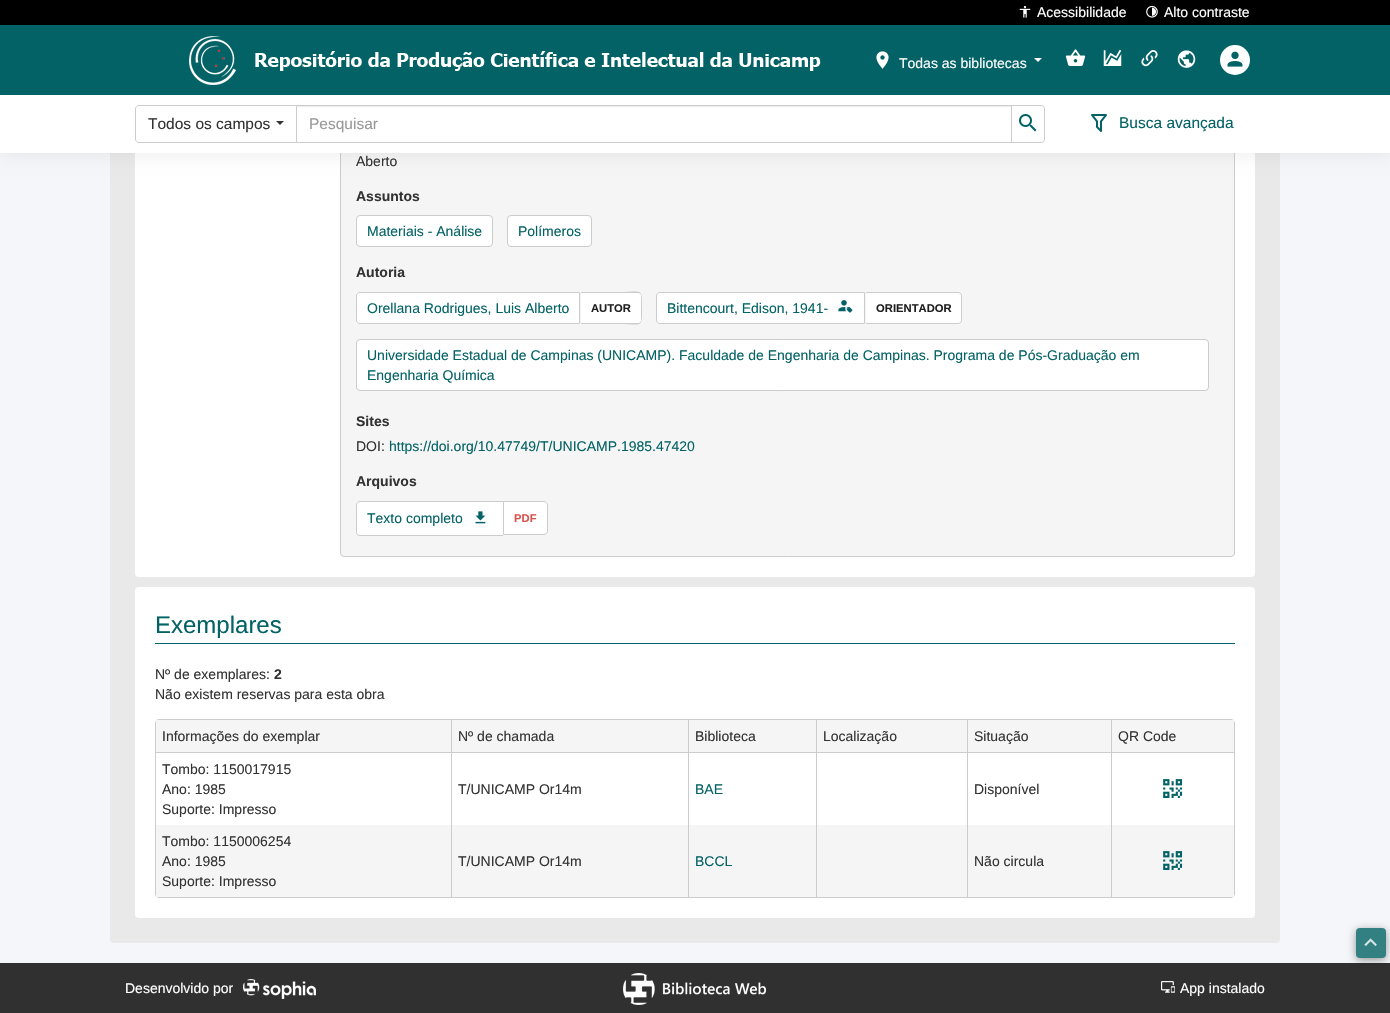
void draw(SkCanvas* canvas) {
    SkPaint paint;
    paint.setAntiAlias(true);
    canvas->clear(0xFFF4F6F9);
    paint.setColor(0xFFE9E9E9);
    canvas->drawRoundRect(SkRect::MakeXYWH(110, -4, 1170, 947), 4, 4, paint);
    paint.setColor(0xFFFFFFFF);
    canvas->drawRoundRect(SkRect::MakeXYWH(135, -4, 1120, 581), 4, 4, paint);
    paint.setColor(0xFFF5F5F5);
    canvas->drawRoundRect(SkRect::MakeXYWH(340.5f, -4.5f, 894, 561), 3.5f, 3.5f, paint);
    paint.setStyle(SkPaint::kStroke_Style);
    paint.setStrokeWidth(1);
    paint.setColor(0xFFCCCCCC);
    canvas->drawRoundRect(SkRect::MakeXYWH(340.5f, -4.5f, 894, 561), 3.5f, 3.5f, paint);
    paint.setStyle(SkPaint::kFill_Style);
    paint.setColor(0xFF000000);
    canvas->drawRect(SkRect::MakeXYWH(0, 0, 1390, 25), paint);
    canvas->drawImageRect(SkImages::DeferredFromEncodedData(SkData::MakeFromFileName("img1.png")), SkRect::MakeXYWH(1019, 6, 12, 12), SkSamplingOptions());
    SkFont font1(fontMgr->matchFamilyStyle("Liberation Sans", SkFontStyle::Normal()), 14);
    font1.setSubpixel(true);
    paint.setColor(0xFFFFFFFF);
    canvas->drawString("Acessibilidade", 1037, 17, font1, paint);
    canvas->drawImageRect(SkImages::DeferredFromEncodedData(SkData::MakeFromFileName("img2.png")), SkRect::MakeXYWH(1146, 5, 12, 13), SkSamplingOptions());
    canvas->drawString("Alto contraste", 1164, 17, font1, paint);
    paint.setColor(0x14000000);
    paint.setMaskFilter(SkMaskFilter::MakeBlur(kNormal_SkBlurStyle, 10));
    canvas->drawRect(SkRect::MakeXYWH(1, 95, 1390, 58), paint);
    paint.setMaskFilter(nullptr);
    paint.setColor(0xFF036265);
    canvas->drawRect(SkRect::MakeXYWH(0, 25, 1390, 70), paint);
    canvas->drawImageRect(SkImages::DeferredFromEncodedData(SkData::MakeFromFileName("img3.png")), SkRect::MakeXYWH(255, 51, 566, 20), SkSamplingOptions());
    canvas->drawImageRect(SkImages::DeferredFromEncodedData(SkData::MakeFromFileName("img4.png")), SkRect::MakeXYWH(189, 36, 47, 49), SkSamplingOptions());
    canvas->drawImageRect(SkImages::DeferredFromEncodedData(SkData::MakeFromFileName("img5.png")), SkRect::MakeXYWH(876, 51, 13, 18), SkSamplingOptions());
    paint.setColor(0xFFFFFFFF);
    canvas->drawString("Todas as bibliotecas", 899, 68, font1, paint);
    canvas->drawPath(SkPathBuilder().moveTo(1034, 58).lineTo(1042, 58).lineTo(1038, 62).close().detach(), paint);
    canvas->drawImageRect(SkImages::DeferredFromEncodedData(SkData::MakeFromFileName("img6.png")), SkRect::MakeXYWH(1065, 49, 21, 17), SkSamplingOptions());
    canvas->drawImageRect(SkImages::DeferredFromEncodedData(SkData::MakeFromFileName("img7.png")), SkRect::MakeXYWH(1103, 49, 19, 17), SkSamplingOptions());
    canvas->drawImageRect(SkImages::DeferredFromEncodedData(SkData::MakeFromFileName("img8.png")), SkRect::MakeXYWH(1141, 50, 17, 17), SkSamplingOptions());
    canvas->drawImageRect(SkImages::DeferredFromEncodedData(SkData::MakeFromFileName("img9.png")), SkRect::MakeXYWH(1177, 50, 19, 18), SkSamplingOptions());
    canvas->drawCircle(1235, 60, 15, paint);
    canvas->drawImageRect(SkImages::DeferredFromEncodedData(SkData::MakeFromFileName("img10.png")), SkRect::MakeXYWH(1227, 51, 16, 16), SkSamplingOptions());
    canvas->drawRect(SkRect::MakeXYWH(0, 95, 1390, 58), paint);
    paint.setStyle(SkPaint::kStroke_Style);
    paint.setColor(0xFFCCCCCC);
    canvas->drawPath(SkPathBuilder().moveTo(139, 105.5f).lineTo(296.5f, 105.5f).lineTo(296.5f, 142.5f).lineTo(139, 142.5f).cubicTo(137, 142.5f, 135.5f, 141, 135.5f, 139).lineTo(135.5f, 109).cubicTo(135.5f, 107, 137, 105.5f, 139, 105.5f).close().detach(), paint);
    SkFont font2(fontMgr->matchFamilyStyle("Liberation Sans", SkFontStyle::Normal()), 15.5f);
    font2.setSubpixel(true);
    paint.setStyle(SkPaint::kFill_Style);
    paint.setColor(0xFF333333);
    canvas->drawString("Todos os campos", 148, 129, font2, paint);
    canvas->drawPath(SkPathBuilder().moveTo(276, 121).lineTo(284, 121).lineTo(280, 125).close().detach(), paint);
    paint.setColor(0xFFECECEC);
    canvas->drawRect(SkRect::MakeXYWH(297, 106, 715, 1), paint);
    paint.setColor(0xFFCCCCCC);
    canvas->drawRect(SkRect::MakeXYWH(297, 105, 716, 1), paint);
    canvas->drawRect(SkRect::MakeXYWH(297, 142, 716, 1), paint);
    paint.setColor(0xFF999999);
    canvas->drawString("Pesquisar", 309, 129, font2, paint);
    paint.setColor(0xFFFFFFFF);
    canvas->drawPath(SkPathBuilder().moveTo(1011.5f, 105.5f).lineTo(1041, 105.5f).cubicTo(1043, 105.5f, 1044.5f, 107, 1044.5f, 109).lineTo(1044.5f, 139).cubicTo(1044.5f, 141, 1043, 142.5f, 1041, 142.5f).lineTo(1011.5f, 142.5f).close().detach(), paint);
    paint.setStyle(SkPaint::kStroke_Style);
    paint.setColor(0xFFCCCCCC);
    canvas->drawPath(SkPathBuilder().moveTo(1011.5f, 105.5f).lineTo(1041, 105.5f).cubicTo(1043, 105.5f, 1044.5f, 107, 1044.5f, 109).lineTo(1044.5f, 139).cubicTo(1044.5f, 141, 1043, 142.5f, 1041, 142.5f).lineTo(1011.5f, 142.5f).close().detach(), paint);
    canvas->drawImageRect(SkImages::DeferredFromEncodedData(SkData::MakeFromFileName("img11.png")), SkRect::MakeXYWH(1019, 114, 18, 18), SkSamplingOptions());
    canvas->drawImageRect(SkImages::DeferredFromEncodedData(SkData::MakeFromFileName("img12.png")), SkRect::MakeXYWH(1091, 114, 16, 18), SkSamplingOptions());
    paint.setStyle(SkPaint::kFill_Style);
    paint.setColor(0xFF036265);
    canvas->drawString("Busca avançada", 1119, 128, font2, paint);
    paint.setColor(0xFF333333);
    canvas->drawString("Aberto", 356, 166, font1, paint);
    SkFont font3(fontMgr->matchFamilyStyle("Liberation Sans", SkFontStyle::Bold()), 14);
    font3.setSubpixel(true);
    canvas->drawString("Assuntos", 356, 201, font3, paint);
    paint.setColor(0xFFFFFFFF);
    canvas->drawRoundRect(SkRect::MakeXYWH(356.5f, 215.5f, 136, 31), 3.5f, 3.5f, paint);
    paint.setStyle(SkPaint::kStroke_Style);
    paint.setColor(0xFFCCCCCC);
    canvas->drawRoundRect(SkRect::MakeXYWH(356.5f, 215.5f, 136, 31), 3.5f, 3.5f, paint);
    paint.setStyle(SkPaint::kFill_Style);
    paint.setColor(0xFF036265);
    canvas->drawString("Materiais - Análise", 367, 236, font1, paint);
    paint.setColor(0xFFFFFFFF);
    canvas->drawRoundRect(SkRect::MakeXYWH(507.5f, 215.5f, 84, 31), 3.5f, 3.5f, paint);
    paint.setStyle(SkPaint::kStroke_Style);
    paint.setColor(0xFFCCCCCC);
    canvas->drawRoundRect(SkRect::MakeXYWH(507.5f, 215.5f, 84, 31), 3.5f, 3.5f, paint);
    paint.setStyle(SkPaint::kFill_Style);
    paint.setColor(0xFF036265);
    canvas->drawString("Polímeros", 518, 236, font1, paint);
    paint.setColor(0xFF333333);
    canvas->drawString("Autoria", 356, 277, font3, paint);
    paint.setColor(0xFFFFFFFF);
    canvas->drawPath(SkPathBuilder().moveTo(360, 292.5f).lineTo(579.5f, 292.5f).lineTo(579.5f, 323.5f).lineTo(360, 323.5f).cubicTo(358, 323.5f, 356.5f, 322, 356.5f, 320).lineTo(356.5f, 296).cubicTo(356.5f, 294, 358, 292.5f, 360, 292.5f).close().detach(), paint);
    paint.setStyle(SkPaint::kStroke_Style);
    paint.setColor(0xFFCCCCCC);
    canvas->drawPath(SkPathBuilder().moveTo(360, 292.5f).lineTo(579.5f, 292.5f).lineTo(579.5f, 323.5f).lineTo(360, 323.5f).cubicTo(358, 323.5f, 356.5f, 322, 356.5f, 320).lineTo(356.5f, 296).cubicTo(356.5f, 294, 358, 292.5f, 360, 292.5f).close().detach(), paint);
    paint.setStyle(SkPaint::kFill_Style);
    paint.setColor(0xFF036265);
    canvas->drawString("Orellana Rodrigues, Luis Alberto", 367, 313, font1, paint);
    paint.setColor(0xFFFFFFFF);
    canvas->drawPath(SkPathBuilder().moveTo(581, 292).lineTo(638, 292).cubicTo(640, 292, 642, 294, 642, 296).lineTo(642, 320).cubicTo(642, 322, 640, 324, 638, 324).lineTo(581, 324).close().detach(), paint);
    paint.setColor(0xFFCCCCCC);
    canvas->drawPath(SkPathBuilder(SkPathFillType::kEvenOdd).moveTo(581, 292).lineTo(619, 292).cubicTo(643, 292, 642, 287, 642, 308).cubicTo(642, 329, 643, 324, 619, 324).lineTo(581, 324).close().moveTo(581, 293).lineTo(638, 293).cubicTo(640, 293, 641, 294, 641, 296).lineTo(641, 320).cubicTo(641, 322, 640, 323, 638, 323).lineTo(581, 323).close().detach(), paint);
    SkFont font4(fontMgr->matchFamilyStyle("Liberation Sans", SkFontStyle::Bold()), 11.25f);
    font4.setSubpixel(true);
    paint.setColor(0xFF202020);
    canvas->drawString("AUTOR", 591, 312, font4, paint);
    paint.setColor(0xFFFFFFFF);
    canvas->drawPath(SkPathBuilder().moveTo(660, 292.5f).lineTo(864.5f, 292.5f).lineTo(864.5f, 323.5f).lineTo(660, 323.5f).cubicTo(658, 323.5f, 656.5f, 322, 656.5f, 320).lineTo(656.5f, 296).cubicTo(656.5f, 294, 658, 292.5f, 660, 292.5f).close().detach(), paint);
    paint.setStyle(SkPaint::kStroke_Style);
    paint.setColor(0xFFCCCCCC);
    canvas->drawPath(SkPathBuilder().moveTo(660, 292.5f).lineTo(864.5f, 292.5f).lineTo(864.5f, 323.5f).lineTo(660, 323.5f).cubicTo(658, 323.5f, 656.5f, 322, 656.5f, 320).lineTo(656.5f, 296).cubicTo(656.5f, 294, 658, 292.5f, 660, 292.5f).close().detach(), paint);
    paint.setStyle(SkPaint::kFill_Style);
    paint.setColor(0xFF036265);
    canvas->drawString("Bittencourt, Edison, 1941-", 667, 313, font1, paint);
    canvas->drawImageRect(SkImages::DeferredFromEncodedData(SkData::MakeFromFileName("img13.png")), SkRect::MakeXYWH(838, 300, 15, 13), SkSamplingOptions());
    paint.setColor(0xFFFFFFFF);
    canvas->drawPath(SkPathBuilder().moveTo(866, 292).lineTo(958, 292).cubicTo(960, 292, 962, 294, 962, 296).lineTo(962, 320).cubicTo(962, 322, 960, 324, 958, 324).lineTo(866, 324).close().detach(), paint);
    paint.setColor(0xFFCCCCCC);
    canvas->drawPath(SkPathBuilder(SkPathFillType::kEvenOdd).moveTo(866, 292).lineTo(958, 292).cubicTo(960, 292, 962, 294, 962, 296).lineTo(962, 320).cubicTo(962, 322, 960, 324, 958, 324).lineTo(866, 324).close().moveTo(866, 293).lineTo(958, 293).cubicTo(960, 293, 961, 294, 961, 296).lineTo(961, 320).cubicTo(961, 322, 960, 323, 958, 323).lineTo(866, 323).close().detach(), paint);
    paint.setColor(0xFF202020);
    canvas->drawString("ORIENTADOR", 876, 312, font4, paint);
    paint.setColor(0xFFFFFFFF);
    canvas->drawRoundRect(SkRect::MakeXYWH(356.5f, 339.5f, 852, 51), 3.5f, 3.5f, paint);
    paint.setStyle(SkPaint::kStroke_Style);
    paint.setColor(0xFFCCCCCC);
    canvas->drawRoundRect(SkRect::MakeXYWH(356.5f, 339.5f, 852, 51), 3.5f, 3.5f, paint);
    paint.setStyle(SkPaint::kFill_Style);
    paint.setColor(0xFF036265);
    canvas->drawString("Universidade Estadual de Campinas (UNICAMP). Faculdade de Engenharia de Campinas. Programa de Pós-Graduação em", 367, 360, font1, paint);
    canvas->drawString("Engenharia Química", 367, 380, font1, paint);
    paint.setColor(0xFF333333);
    canvas->drawString("Sites", 356, 426, font3, paint);
    canvas->drawString("DOI:", 356, 451, font1, paint);
    paint.setColor(0xFF036265);
    canvas->drawString("https://doi.org/10.47749/T/UNICAMP.1985.47420", 389, 451, font1, paint);
    paint.setColor(0xFF333333);
    canvas->drawString("Arquivos", 356, 486, font3, paint);
    paint.setColor(0xFFFFFFFF);
    canvas->drawPath(SkPathBuilder().moveTo(360, 501).lineTo(503, 501).lineTo(503, 536).lineTo(360, 536).cubicTo(358, 536, 356, 534, 356, 532).lineTo(356, 505).cubicTo(356, 503, 358, 501, 360, 501).close().detach(), paint);
    paint.setColor(0xFFCCCCCC);
    canvas->drawPath(SkPathBuilder(SkPathFillType::kEvenOdd).moveTo(360, 501).lineTo(503, 501).lineTo(503, 536).lineTo(360, 536).cubicTo(358, 536, 356, 534, 356, 532).lineTo(356, 505).cubicTo(356, 503, 358, 501, 360, 501).close().moveTo(360, 502).lineTo(503, 502).lineTo(503, 535).lineTo(360, 535).cubicTo(358, 535, 357, 534, 357, 532).lineTo(357, 505).cubicTo(357, 503, 358, 502, 360, 502).close().detach(), paint);
    paint.setColor(0xFF036265);
    canvas->drawString("Texto completo", 367, 523, font1, paint);
    canvas->drawImageRect(SkImages::DeferredFromEncodedData(SkData::MakeFromFileName("img14.png")), SkRect::MakeXYWH(475, 511, 11, 13), SkSamplingOptions());
    paint.setColor(0xFFFFFFFF);
    canvas->drawPath(SkPathBuilder().moveTo(503.5f, 501.5f).lineTo(544, 501.5f).cubicTo(546, 501.5f, 547.5f, 503, 547.5f, 505).lineTo(547.5f, 531).cubicTo(547.5f, 533, 546, 534.5f, 544, 534.5f).lineTo(503.5f, 534.5f).close().detach(), paint);
    paint.setStyle(SkPaint::kStroke_Style);
    paint.setColor(0xFFCCCCCC);
    canvas->drawPath(SkPathBuilder().moveTo(503.5f, 501.5f).lineTo(544, 501.5f).cubicTo(546, 501.5f, 547.5f, 503, 547.5f, 505).lineTo(547.5f, 531).cubicTo(547.5f, 533, 546, 534.5f, 544, 534.5f).lineTo(503.5f, 534.5f).close().detach(), paint);
    paint.setStyle(SkPaint::kFill_Style);
    paint.setColor(0xFFD9534F);
    canvas->drawString("PDF", 514, 522, font4, paint);
    paint.setColor(0xFFFFFFFF);
    canvas->drawRoundRect(SkRect::MakeXYWH(135, 587, 1120, 331), 4, 4, paint);
    paint.setColor(0xFF036265);
    canvas->drawRect(SkRect::MakeXYWH(155, 643, 1080, 1), paint);
    SkFont font5(fontMgr->matchFamilyStyle("Liberation Sans", SkFontStyle::Normal()), 24);
    font5.setSubpixel(true);
    canvas->drawString("Exemplares", 155, 633, font5, paint);
    paint.setColor(0xFF333333);
    canvas->drawString("Nº de exemplares:", 155, 679, font1, paint);
    canvas->drawString("2", 274, 679, font3, paint);
    canvas->drawString("Não existem reservas para esta obra", 155, 699, font1, paint);
    paint.setStyle(SkPaint::kStroke_Style);
    paint.setColor(0xFFCCCCCC);
    canvas->drawRoundRect(SkRect::MakeXYWH(155.5f, 719.5f, 1079, 178), 3.5f, 3.5f, paint);
    paint.setStyle(SkPaint::kFill_Style);
    paint.setColor(0xFFF5F5F5);
    canvas->drawRect(SkRect::MakeXYWH(156, 720, 295, 32), paint);
    canvas->drawRect(SkRect::MakeXYWH(156, 825, 1078, 72), paint);
    paint.setColor(0xFFCCCCCC);
    canvas->drawRect(SkRect::MakeXYWH(1111, 752, 1, 145), paint);
    canvas->drawRect(SkRect::MakeXYWH(1111, 752, 124, 1), paint);
    canvas->drawRect(SkRect::MakeXYWH(1111, 719, 1, 34), paint);
    canvas->drawRect(SkRect::MakeXYWH(967, 752, 1, 145), paint);
    canvas->drawRect(SkRect::MakeXYWH(967, 752, 145, 1), paint);
    canvas->drawRect(SkRect::MakeXYWH(967, 719, 1, 34), paint);
    canvas->drawRect(SkRect::MakeXYWH(816, 752, 1, 145), paint);
    canvas->drawRect(SkRect::MakeXYWH(816, 752, 152, 1), paint);
    canvas->drawRect(SkRect::MakeXYWH(816, 719, 1, 34), paint);
    canvas->drawRect(SkRect::MakeXYWH(688, 752, 1, 145), paint);
    canvas->drawRect(SkRect::MakeXYWH(688, 752, 129, 1), paint);
    canvas->drawRect(SkRect::MakeXYWH(688, 719, 1, 34), paint);
    canvas->drawRect(SkRect::MakeXYWH(451, 752, 1, 145), paint);
    canvas->drawRect(SkRect::MakeXYWH(451, 752, 238, 1), paint);
    canvas->drawRect(SkRect::MakeXYWH(451, 719, 1, 34), paint);
    canvas->drawRect(SkRect::MakeXYWH(156, 752, 296, 1), paint);
    paint.setColor(0xFF333333);
    canvas->drawString("Informações do exemplar", 162, 741, font1, paint);
    paint.setColor(0xFFF5F5F5);
    canvas->drawRect(SkRect::MakeXYWH(452, 720, 236, 32), paint);
    paint.setColor(0xFF333333);
    canvas->drawString("Nº de chamada", 458, 741, font1, paint);
    paint.setColor(0xFFF5F5F5);
    canvas->drawRect(SkRect::MakeXYWH(689, 720, 127, 32), paint);
    paint.setColor(0xFF333333);
    canvas->drawString("Biblioteca", 695, 741, font1, paint);
    paint.setColor(0xFFF5F5F5);
    canvas->drawRect(SkRect::MakeXYWH(817, 720, 150, 32), paint);
    paint.setColor(0xFF333333);
    canvas->drawString("Localização", 823, 741, font1, paint);
    paint.setColor(0xFFF5F5F5);
    canvas->drawRect(SkRect::MakeXYWH(968, 720, 143, 32), paint);
    paint.setColor(0xFF333333);
    canvas->drawString("Situação", 974, 741, font1, paint);
    paint.setColor(0xFFF5F5F5);
    canvas->drawRect(SkRect::MakeXYWH(1112, 720, 122, 32), paint);
    paint.setColor(0xFF333333);
    canvas->drawString("QR Code", 1118, 741, font1, paint);
    canvas->drawString("Tombo: 1150017915", 162, 774, font1, paint);
    canvas->drawString("Ano: 1985", 162, 794, font1, paint);
    canvas->drawString("Suporte: Impresso", 162, 814, font1, paint);
    canvas->drawString("T/UNICAMP Or14m", 458, 794, font1, paint);
    paint.setColor(0xFF036265);
    canvas->drawString("BAE", 695, 794, font1, paint);
    paint.setColor(0xFF333333);
    canvas->drawString("Disponível", 974, 794, font1, paint);
    canvas->drawImageRect(SkImages::DeferredFromEncodedData(SkData::MakeFromFileName("img15.png")), SkRect::MakeXYWH(1163, 779, 20, 19), SkSamplingOptions());
    canvas->drawString("Tombo: 1150006254", 162, 846, font1, paint);
    canvas->drawString("Ano: 1985", 162, 866, font1, paint);
    canvas->drawString("Suporte: Impresso", 162, 886, font1, paint);
    canvas->drawString("T/UNICAMP Or14m", 458, 866, font1, paint);
    paint.setColor(0xFF036265);
    canvas->drawString("BCCL", 695, 866, font1, paint);
    paint.setColor(0xFF333333);
    canvas->drawString("Não circula", 974, 866, font1, paint);
    canvas->drawImageRect(SkImages::DeferredFromEncodedData(SkData::MakeFromFileName("img16.png")), SkRect::MakeXYWH(1163, 851, 20, 19), SkSamplingOptions());
    paint.setColor(0xFF303030);
    canvas->drawRect(SkRect::MakeXYWH(0, 963, 1390, 50), paint);
    paint.setColor(0x66000000);
    paint.setMaskFilter(SkMaskFilter::MakeBlur(kNormal_SkBlurStyle, 4));
    canvas->drawRoundRect(SkRect::MakeXYWH(1356, 930, 30, 30), 4, 4, paint);
    paint.setMaskFilter(nullptr);
    paint.setColor(0xFF338083);
    canvas->drawRoundRect(SkRect::MakeXYWH(1356, 928, 30, 30), 4, 4, paint);
    canvas->drawImageRect(SkImages::DeferredFromEncodedData(SkData::MakeFromFileName("img17.png")), SkRect::MakeXYWH(1364, 938, 13, 8), SkSamplingOptions());
    paint.setColor(0xFFFFFFFF);
    canvas->drawString("Desenvolvido por", 125, 993, font1, paint);
    canvas->drawImageRect(SkImages::DeferredFromEncodedData(SkData::MakeFromFileName("img18.png")), SkRect::MakeXYWH(243, 979, 73, 20), SkSamplingOptions());
    canvas->drawImageRect(SkImages::DeferredFromEncodedData(SkData::MakeFromFileName("img19.png")), SkRect::MakeXYWH(623, 973, 143, 32), SkSamplingOptions());
    canvas->drawImageRect(SkImages::DeferredFromEncodedData(SkData::MakeFromFileName("img20.png")), SkRect::MakeXYWH(1161, 981, 14, 12), SkSamplingOptions());
    canvas->drawString("App instalado", 1180, 993, font1, paint);
}
